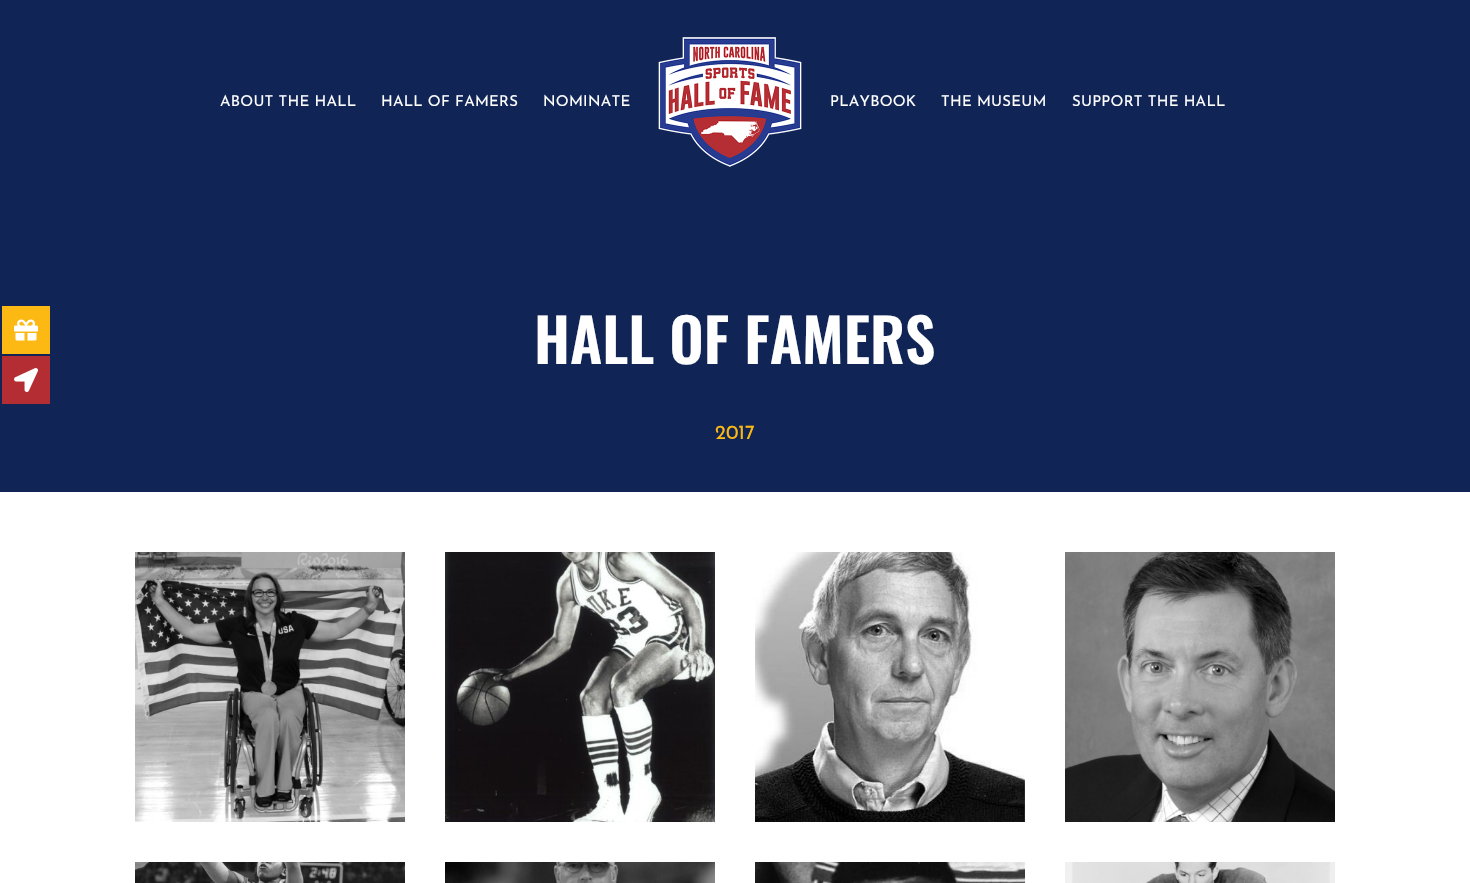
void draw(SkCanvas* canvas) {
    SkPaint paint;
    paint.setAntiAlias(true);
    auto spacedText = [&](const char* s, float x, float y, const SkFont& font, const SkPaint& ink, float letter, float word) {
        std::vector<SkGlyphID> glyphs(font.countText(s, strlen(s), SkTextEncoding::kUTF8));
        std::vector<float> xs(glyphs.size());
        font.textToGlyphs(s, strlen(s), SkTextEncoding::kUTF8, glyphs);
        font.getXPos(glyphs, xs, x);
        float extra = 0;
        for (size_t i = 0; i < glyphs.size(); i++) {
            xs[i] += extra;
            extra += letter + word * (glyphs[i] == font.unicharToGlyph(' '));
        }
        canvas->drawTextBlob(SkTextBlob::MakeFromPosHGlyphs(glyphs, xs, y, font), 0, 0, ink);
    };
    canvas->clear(0xFFFFFFFF);
    paint.setColor(0xFF102556);
    canvas->drawRect(SkRect::MakeXYWH(0, 0, 1470, 492), paint);
    paint.setColor(0xFFFDB913);
    canvas->drawRect(SkRect::MakeXYWH(2, 306, 48, 48), paint);
    canvas->drawImageRect(SkImages::DeferredFromEncodedData(SkData::MakeFromFileName("img1.png")), SkRect::MakeXYWH(14, 319, 24, 22), SkSamplingOptions());
    paint.setColor(0xFFB42D33);
    canvas->drawRect(SkRect::MakeXYWH(2, 356, 48, 48), paint);
    canvas->drawImageRect(SkImages::DeferredFromEncodedData(SkData::MakeFromFileName("img2.png")), SkRect::MakeXYWH(14, 368, 24, 24), SkSamplingOptions());
    SkFont font1(fontMgr->matchFamilyStyle("Josefin Sans", SkFontStyle::Normal()), 15);
    font1.setSubpixel(true);
    paint.setColor(0xFFFFFFFF);
    spacedText("ABOUT THE HALL", 220, 106, font1, paint, 0.25f, 0);
    spacedText("HALL OF FAMERS", 381, 106, font1, paint, 0.25f, 0);
    spacedText("NOMINATE", 543, 106, font1, paint, 0.25f, 0);
    canvas->drawImageRect(SkImages::DeferredFromEncodedData(SkData::MakeFromFileName("img3.png")), SkRect::MakeXYWH(658, 37, 144, 130), SkSamplingOptions());
    spacedText("PLAYBOOK", 830, 106, font1, paint, 0.25f, 0);
    spacedText("THE MUSEUM", 941, 106, font1, paint, 0.25f, 0);
    spacedText("SUPPORT THE HALL", 1072, 106, font1, paint, 0.25f, 0);
    SkFont font2(fontMgr->matchFamilyStyle("Oswald", SkFontStyle(600, SkFontStyle::kNormal_Width, SkFontStyle::kUpright_Slant)), 60);
    font2.setSubpixel(true);
    canvas->drawString("HALL OF FAMERS", 534, 364, font2, paint);
    SkFont font3(fontMgr->matchFamilyStyle("Josefin Sans", SkFontStyle::Normal()), 20);
    font3.setSubpixel(true);
    paint.setColor(0xFFFDB913);
    canvas->drawString("2017", 715, 439, font3, paint);
    canvas->drawImageRect(SkImages::DeferredFromEncodedData(SkData::MakeFromFileName("img4.png")), SkRect::MakeXYWH(135, 552, 270, 270), SkSamplingOptions());
    canvas->drawImageRect(SkImages::DeferredFromEncodedData(SkData::MakeFromFileName("img5.png")), SkRect::MakeXYWH(445, 552, 270, 270), SkSamplingOptions());
    canvas->drawImageRect(SkImages::DeferredFromEncodedData(SkData::MakeFromFileName("img6.png")), SkRect::MakeXYWH(755, 552, 270, 270), SkSamplingOptions());
    canvas->drawImageRect(SkImages::DeferredFromEncodedData(SkData::MakeFromFileName("img7.png")), SkRect::MakeXYWH(1065, 552, 270, 270), SkSamplingOptions());
    canvas->drawImageRect(SkImages::DeferredFromEncodedData(SkData::MakeFromFileName("img8.png")), SkRect::MakeXYWH(135, 862, 270, 21), SkSamplingOptions());
    canvas->drawImageRect(SkImages::DeferredFromEncodedData(SkData::MakeFromFileName("img9.png")), SkRect::MakeXYWH(445, 862, 270, 21), SkSamplingOptions());
    canvas->drawImageRect(SkImages::DeferredFromEncodedData(SkData::MakeFromFileName("img10.png")), SkRect::MakeXYWH(755, 862, 270, 21), SkSamplingOptions());
    canvas->drawImageRect(SkImages::DeferredFromEncodedData(SkData::MakeFromFileName("img11.png")), SkRect::MakeXYWH(1065, 862, 270, 21), SkSamplingOptions());
}
